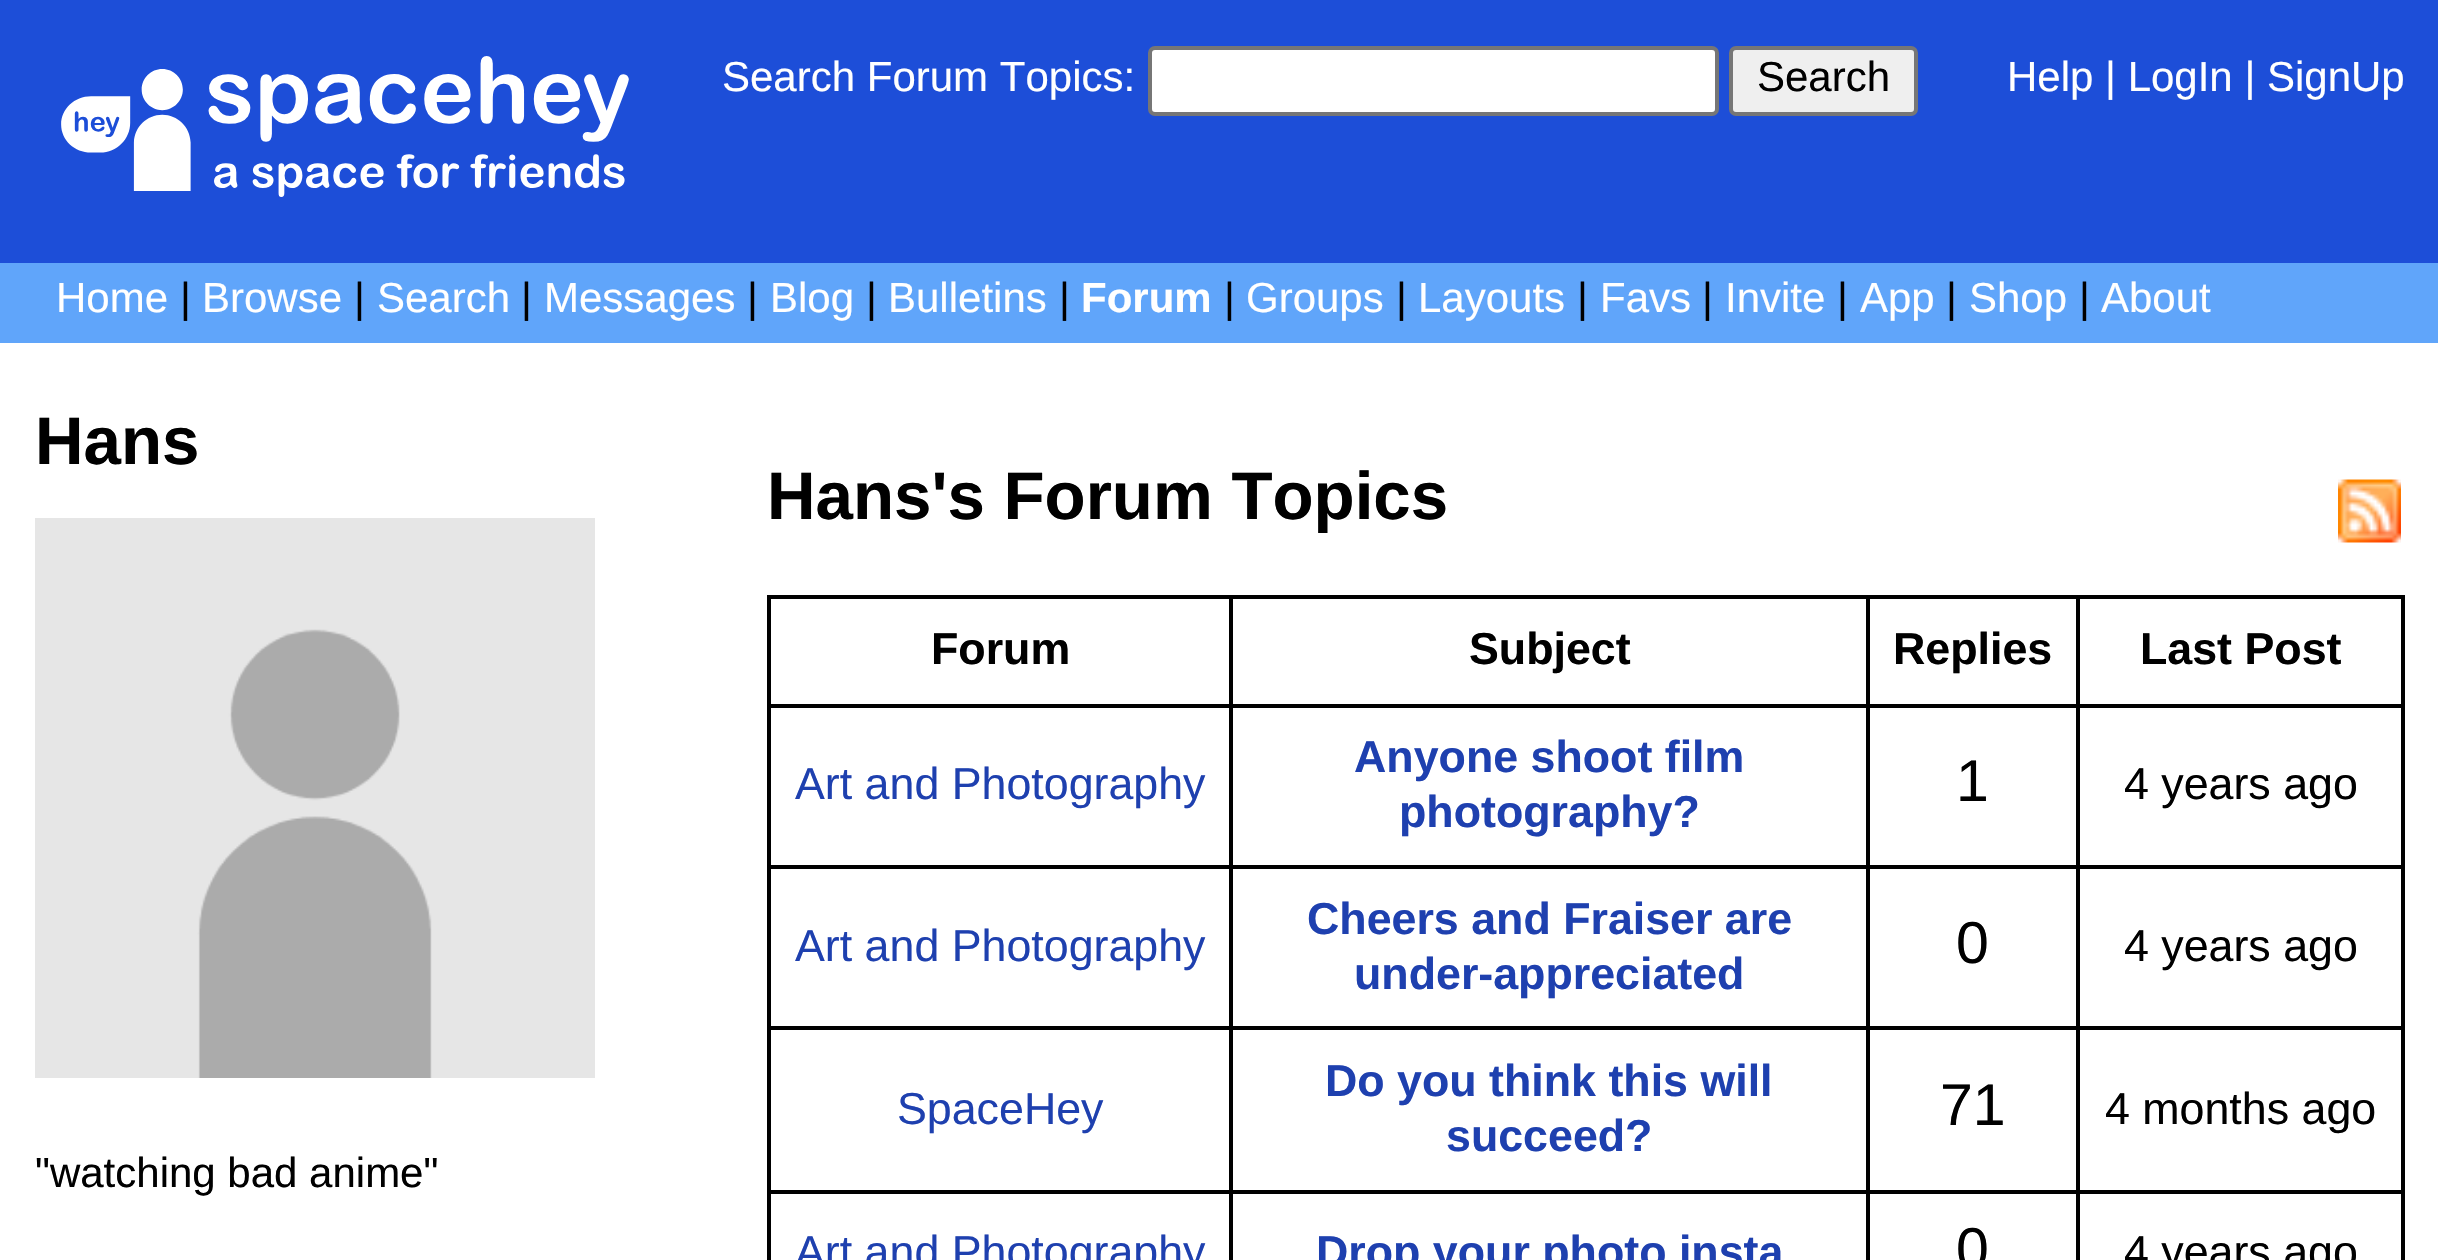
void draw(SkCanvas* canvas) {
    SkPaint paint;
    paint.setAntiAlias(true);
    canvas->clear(0xFF60A5FA);
    paint.setColor(0xFF1D4ED8);
    canvas->drawRect(SkRect::MakeXYWH(0, 0, 2438, 263), paint);
    canvas->drawImageRect(SkImages::DeferredFromEncodedData(SkData::MakeFromFileName("img1.png")), SkRect::MakeXYWH(61, 56, 568, 141), SkSamplingOptions());
    SkFont font1(fontMgr->matchFamilyStyle("Liberation Sans", SkFontStyle::Normal()), 42);
    font1.setSubpixel(true);
    paint.setColor(0xFFFFFFFF);
    canvas->drawString("Search Forum Topics:", 722, 91, font1, paint);
    canvas->drawRoundRect(SkRect::MakeXYWH(1150, 48, 567, 66), 5, 5, paint);
    paint.setStyle(SkPaint::kStroke_Style);
    paint.setStrokeWidth(4);
    paint.setColor(0xFF767676);
    canvas->drawRoundRect(SkRect::MakeXYWH(1150, 48, 567, 66), 5, 5, paint);
    paint.setStyle(SkPaint::kFill_Style);
    paint.setColor(0xFFEFEFEF);
    canvas->drawRoundRect(SkRect::MakeXYWH(1731, 48, 185, 66), 5, 5, paint);
    paint.setStyle(SkPaint::kStroke_Style);
    paint.setColor(0xFF767676);
    canvas->drawRoundRect(SkRect::MakeXYWH(1731, 48, 185, 66), 5, 5, paint);
    paint.setStyle(SkPaint::kFill_Style);
    paint.setColor(0xFF000000);
    canvas->drawString("Search", 1757, 91, font1, paint);
    paint.setColor(0xFFFFFFFF);
    canvas->drawString("Help | LogIn | SignUp", 2007, 91, font1, paint);
    canvas->drawString("Home", 56, 312, font1, paint);
    paint.setColor(0xFF000000);
    canvas->drawString("|", 180, 312, font1, paint);
    paint.setColor(0xFFFFFFFF);
    canvas->drawString("Browse", 202, 312, font1, paint);
    paint.setColor(0xFF000000);
    canvas->drawString("|", 354, 312, font1, paint);
    paint.setColor(0xFFFFFFFF);
    canvas->drawString("Search", 377, 312, font1, paint);
    paint.setColor(0xFF000000);
    canvas->drawString("|", 521, 312, font1, paint);
    paint.setColor(0xFFFFFFFF);
    canvas->drawString("Messages", 544, 312, font1, paint);
    paint.setColor(0xFF000000);
    canvas->drawString("|", 747, 312, font1, paint);
    paint.setColor(0xFFFFFFFF);
    canvas->drawString("Blog", 770, 312, font1, paint);
    paint.setColor(0xFF000000);
    canvas->drawString("|", 866, 312, font1, paint);
    paint.setColor(0xFFFFFFFF);
    canvas->drawString("Bulletins", 888, 312, font1, paint);
    paint.setColor(0xFF000000);
    canvas->drawString("|", 1059, 312, font1, paint);
    SkFont font2(fontMgr->matchFamilyStyle("Liberation Sans", SkFontStyle::Bold()), 42);
    font2.setSubpixel(true);
    paint.setColor(0xFFFFFFFF);
    canvas->drawString("Forum", 1081, 312, font2, paint);
    paint.setColor(0xFF000000);
    canvas->drawString("|", 1224, 312, font1, paint);
    paint.setColor(0xFFFFFFFF);
    canvas->drawString("Groups", 1246, 312, font1, paint);
    paint.setColor(0xFF000000);
    canvas->drawString("|", 1396, 312, font1, paint);
    paint.setColor(0xFFFFFFFF);
    canvas->drawString("Layouts", 1418, 312, font1, paint);
    paint.setColor(0xFF000000);
    canvas->drawString("|", 1577, 312, font1, paint);
    paint.setColor(0xFFFFFFFF);
    canvas->drawString("Favs", 1600, 312, font1, paint);
    paint.setColor(0xFF000000);
    canvas->drawString("|", 1702, 312, font1, paint);
    paint.setColor(0xFFFFFFFF);
    canvas->drawString("Invite", 1725, 312, font1, paint);
    paint.setColor(0xFF000000);
    canvas->drawString("|", 1837, 312, font1, paint);
    paint.setColor(0xFFFFFFFF);
    canvas->drawString("App", 1860, 312, font1, paint);
    paint.setColor(0xFF000000);
    canvas->drawString("|", 1946, 312, font1, paint);
    paint.setColor(0xFFFFFFFF);
    canvas->drawString("Shop", 1969, 312, font1, paint);
    paint.setColor(0xFF000000);
    canvas->drawString("|", 2079, 312, font1, paint);
    paint.setColor(0xFFFFFFFF);
    canvas->drawString("About", 2101, 312, font1, paint);
    canvas->drawRect(SkRect::MakeXYWH(0, 343, 2438, 917), paint);
    SkFont font3(fontMgr->matchFamilyStyle("Liberation Sans", SkFontStyle::Bold()), 67.25f);
    font3.setSubpixel(true);
    paint.setColor(0xFF000000);
    canvas->drawString("Hans", 35, 464, font3, paint);
    canvas->drawImageRect(SkImages::DeferredFromEncodedData(SkData::MakeFromFileName("img2.png")), SkRect::MakeXYWH(35, 518, 560, 560), SkSamplingOptions());
    canvas->drawString("\"watching bad anime\"", 35, 1187, font1, paint);
    canvas->drawString("Hans's Forum Topics", 767, 519, font3, paint);
    canvas->drawImageRect(SkImages::DeferredFromEncodedData(SkData::MakeFromFileName("img3.png")), SkRect::MakeXYWH(2338, 479, 63, 64), SkSamplingOptions());
    canvas->drawRect(SkRect::MakeXYWH(2076, 595, 329, 4), paint);
    canvas->drawRect(SkRect::MakeXYWH(2076, 704, 329, 4), paint);
    canvas->drawRect(SkRect::MakeXYWH(2076, 865, 329, 4), paint);
    canvas->drawRect(SkRect::MakeXYWH(2076, 1026, 329, 4), paint);
    canvas->drawRect(SkRect::MakeXYWH(2076, 1190, 329, 4), paint);
    canvas->drawRect(SkRect::MakeXYWH(2076, 1190, 4, 70), paint);
    canvas->drawRect(SkRect::MakeXYWH(1866, 1190, 213, 4), paint);
    canvas->drawRect(SkRect::MakeXYWH(2076, 1026, 4, 168), paint);
    canvas->drawRect(SkRect::MakeXYWH(1866, 1026, 213, 4), paint);
    canvas->drawRect(SkRect::MakeXYWH(2076, 865, 4, 164), paint);
    canvas->drawRect(SkRect::MakeXYWH(1866, 865, 213, 4), paint);
    canvas->drawRect(SkRect::MakeXYWH(2076, 704, 4, 164), paint);
    canvas->drawRect(SkRect::MakeXYWH(1866, 704, 213, 4), paint);
    canvas->drawRect(SkRect::MakeXYWH(2076, 595, 4, 112), paint);
    canvas->drawRect(SkRect::MakeXYWH(1866, 595, 213, 4), paint);
    canvas->drawRect(SkRect::MakeXYWH(1866, 1190, 4, 70), paint);
    canvas->drawRect(SkRect::MakeXYWH(1229, 1190, 640, 4), paint);
    canvas->drawRect(SkRect::MakeXYWH(1866, 1026, 4, 168), paint);
    canvas->drawRect(SkRect::MakeXYWH(1229, 1026, 640, 4), paint);
    canvas->drawRect(SkRect::MakeXYWH(1866, 865, 4, 164), paint);
    canvas->drawRect(SkRect::MakeXYWH(1229, 865, 640, 4), paint);
    canvas->drawRect(SkRect::MakeXYWH(1866, 704, 4, 164), paint);
    canvas->drawRect(SkRect::MakeXYWH(1229, 704, 640, 4), paint);
    canvas->drawRect(SkRect::MakeXYWH(1866, 595, 4, 112), paint);
    canvas->drawRect(SkRect::MakeXYWH(1229, 595, 640, 4), paint);
    canvas->drawRect(SkRect::MakeXYWH(1229, 1190, 4, 70), paint);
    canvas->drawRect(SkRect::MakeXYWH(767, 1190, 465, 4), paint);
    canvas->drawRect(SkRect::MakeXYWH(1229, 1026, 4, 168), paint);
    canvas->drawRect(SkRect::MakeXYWH(767, 1026, 465, 4), paint);
    canvas->drawRect(SkRect::MakeXYWH(1229, 865, 4, 164), paint);
    canvas->drawRect(SkRect::MakeXYWH(767, 865, 465, 4), paint);
    canvas->drawRect(SkRect::MakeXYWH(1229, 704, 4, 164), paint);
    canvas->drawRect(SkRect::MakeXYWH(767, 704, 465, 4), paint);
    canvas->drawRect(SkRect::MakeXYWH(1229, 595, 4, 112), paint);
    canvas->drawRect(SkRect::MakeXYWH(767, 595, 465, 4), paint);
    canvas->drawRect(SkRect::MakeXYWH(767, 1190, 4, 70), paint);
    canvas->drawRect(SkRect::MakeXYWH(767, 1026, 4, 168), paint);
    canvas->drawRect(SkRect::MakeXYWH(767, 865, 4, 164), paint);
    canvas->drawRect(SkRect::MakeXYWH(767, 704, 4, 164), paint);
    canvas->drawRect(SkRect::MakeXYWH(767, 595, 4, 112), paint);
    SkFont font4(fontMgr->matchFamilyStyle("Liberation Sans", SkFontStyle::Bold()), 44.75f);
    font4.setSubpixel(true);
    canvas->drawString("Forum", 931, 664, font4, paint);
    canvas->drawString("Subject", 1469, 664, font4, paint);
    canvas->drawString("Replies", 1893, 664, font4, paint);
    canvas->drawRect(SkRect::MakeXYWH(2401, 1190, 4, 70), paint);
    canvas->drawRect(SkRect::MakeXYWH(2401, 1026, 4, 168), paint);
    canvas->drawRect(SkRect::MakeXYWH(2401, 865, 4, 164), paint);
    canvas->drawRect(SkRect::MakeXYWH(2401, 704, 4, 164), paint);
    canvas->drawRect(SkRect::MakeXYWH(2401, 595, 4, 112), paint);
    canvas->drawString("Last Post", 2140, 664, font4, paint);
    SkFont font5(fontMgr->matchFamilyStyle("Liberation Sans", SkFontStyle::Normal()), 44.75f);
    font5.setSubpixel(true);
    paint.setColor(0xFF1E40AF);
    canvas->drawString("Art and Photography", 795, 799, font5, paint);
    canvas->drawString("Anyone shoot film", 1354, 772, font4, paint);
    canvas->drawString("photography?", 1399, 827, font4, paint);
    SkFont font6(fontMgr->matchFamilyStyle("Liberation Sans", SkFontStyle::Normal()), 59);
    font6.setSubpixel(true);
    paint.setColor(0xFF000000);
    canvas->drawString("1", 1956, 801, font6, paint);
    canvas->drawString("4 years ago", 2124, 799, font5, paint);
    paint.setColor(0xFF1E40AF);
    canvas->drawString("Art and Photography", 795, 961, font5, paint);
    canvas->drawString("Cheers and Fraiser are", 1307, 934, font4, paint);
    canvas->drawString("under-appreciated", 1354, 989, font4, paint);
    paint.setColor(0xFF000000);
    canvas->drawString("0", 1956, 963, font6, paint);
    canvas->drawString("4 years ago", 2124, 961, font5, paint);
    paint.setColor(0xFF1E40AF);
    canvas->drawString("SpaceHey", 897, 1124, font5, paint);
    canvas->drawString("Do you think this will", 1325, 1096, font4, paint);
    canvas->drawString("succeed?", 1446, 1151, font4, paint);
    paint.setColor(0xFF000000);
    canvas->drawString("71", 1940, 1125, font6, paint);
    canvas->drawString("4 months ago", 2105, 1124, font5, paint);
    paint.setColor(0xFF1E40AF);
    canvas->drawString("Art and Photography", 795, 1267, font5, paint);
    canvas->drawString("Drop your photo insta", 1316, 1267, font4, paint);
    paint.setColor(0xFF000000);
    canvas->drawString("0", 1956, 1269, font6, paint);
    canvas->drawString("4 years ago", 2124, 1267, font5, paint);
}
